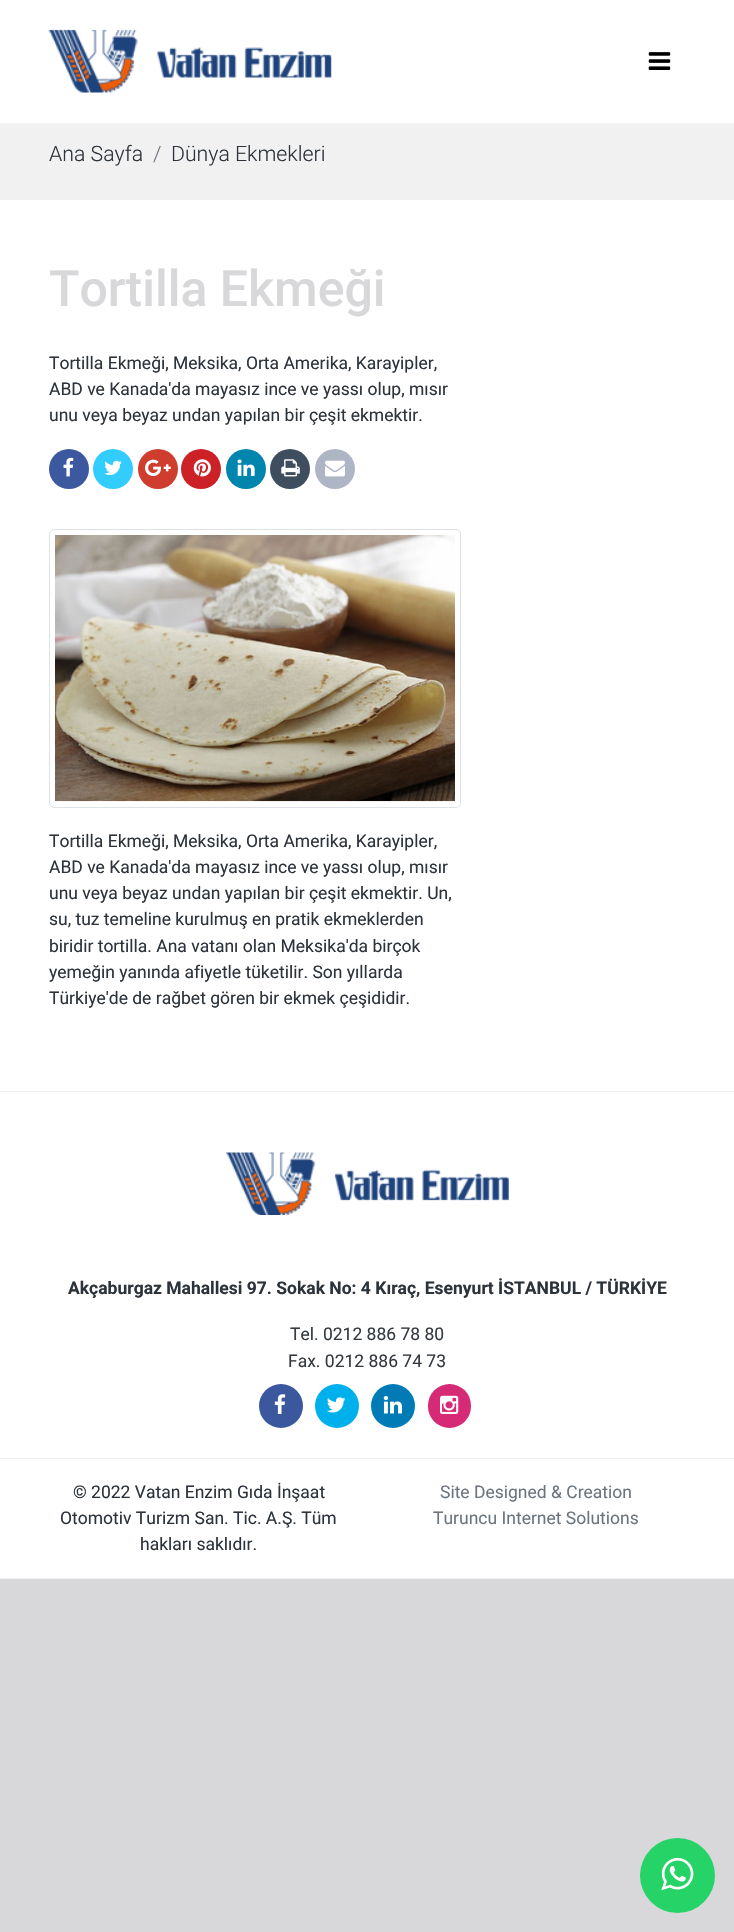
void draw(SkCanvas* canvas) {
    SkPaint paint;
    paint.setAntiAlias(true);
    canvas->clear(0xFFD8D7D9);
    paint.setColor(0xFFFFFFFF);
    canvas->drawRect(SkRect::MakeXYWH(0, 0, 734, 123), paint);
    canvas->drawImageRect(SkImages::DeferredFromEncodedData(SkData::MakeFromFileName("img1.png")), SkRect::MakeXYWH(48, 29, 284, 64), SkSamplingOptions());
    canvas->drawImageRect(SkImages::DeferredFromEncodedData(SkData::MakeFromFileName("img2.png")), SkRect::MakeXYWH(648, 52, 23, 18), SkSamplingOptions());
    canvas->drawRect(SkRect::MakeXYWH(0, 200, 734, 891), paint);
    paint.setColor(0xFFF1F1F1);
    canvas->drawRect(SkRect::MakeXYWH(0, 123, 734, 77), paint);
    SkFont font1(fontMgr->matchFamilyStyle("Roboto", SkFontStyle(300, SkFontStyle::kNormal_Width, SkFontStyle::kUpright_Slant)), 21.25f);
    font1.setSubpixel(true);
    paint.setColor(0xFF2D333B);
    canvas->drawString("Ana Sayfa", 49, 161, font1, paint);
    paint.setColor(0xFF6C757D);
    canvas->drawString("/", 153, 161, font1, paint);
    paint.setColor(0xFF2D333B);
    canvas->drawString("Dünya Ekmekleri", 171, 161, font1, paint);
    SkFont font2(fontMgr->matchFamilyStyle("Roboto", SkFontStyle(500, SkFontStyle::kNormal_Width, SkFontStyle::kUpright_Slant)), 50);
    font2.setSubpixel(true);
    paint.setColor(0xFFD8D7D9);
    canvas->drawString("Tortilla Ekmeği", 49, 306, font2, paint);
    SkFont font3(fontMgr->matchFamilyStyle("Roboto", SkFontStyle::Normal()), 17.5f);
    font3.setSubpixel(true);
    paint.setColor(0xFF2D333B);
    canvas->drawString("Tortilla Ekmeği, Meksika, Orta Amerika, Karayipler,", 49, 369, font3, paint);
    canvas->drawString("ABD ve Kanada'da mayasız ince ve yassı olup, mısır", 49, 395, font3, paint);
    canvas->drawString("unu veya beyaz undan yapılan bir çeşit ekmektir.", 49, 421, font3, paint);
    paint.setColor(0xFF3C599F);
    canvas->drawCircle(69, 469, 20, paint);
    canvas->drawImageRect(SkImages::DeferredFromEncodedData(SkData::MakeFromFileName("img3.png")), SkRect::MakeXYWH(63, 457, 11, 20), SkSamplingOptions());
    paint.setColor(0xFF32CCFE);
    canvas->drawCircle(113, 469, 20, paint);
    canvas->drawImageRect(SkImages::DeferredFromEncodedData(SkData::MakeFromFileName("img4.png")), SkRect::MakeXYWH(104, 460, 18, 15), SkSamplingOptions());
    paint.setColor(0xFFCF3D2E);
    canvas->drawCircle(158, 469, 20, paint);
    canvas->drawImageRect(SkImages::DeferredFromEncodedData(SkData::MakeFromFileName("img5.png")), SkRect::MakeXYWH(145, 459, 26, 17), SkSamplingOptions());
    paint.setColor(0xFFCC2127);
    canvas->drawCircle(201, 469, 20, paint);
    canvas->drawImageRect(SkImages::DeferredFromEncodedData(SkData::MakeFromFileName("img6.png")), SkRect::MakeXYWH(193, 459, 18, 18), SkSamplingOptions());
    paint.setColor(0xFF0085AE);
    canvas->drawCircle(246, 469, 20, paint);
    canvas->drawImageRect(SkImages::DeferredFromEncodedData(SkData::MakeFromFileName("img7.png")), SkRect::MakeXYWH(237, 459, 18, 17), SkSamplingOptions());
    paint.setColor(0xFF3E4E5E);
    canvas->drawCircle(290, 469, 20, paint);
    canvas->drawImageRect(SkImages::DeferredFromEncodedData(SkData::MakeFromFileName("img8.png")), SkRect::MakeXYWH(281, 459, 19, 18), SkSamplingOptions());
    paint.setColor(0xFFAEB5C5);
    canvas->drawCircle(335, 469, 20, paint);
    canvas->drawImageRect(SkImages::DeferredFromEncodedData(SkData::MakeFromFileName("img9.png")), SkRect::MakeXYWH(325, 460, 20, 17), SkSamplingOptions());
    paint.setStyle(SkPaint::kStroke_Style);
    paint.setStrokeWidth(1);
    paint.setColor(0xFFDEE2E6);
    canvas->drawRoundRect(SkRect::MakeXYWH(49.5f, 529.5f, 411, 278), 4.5f, 4.5f, paint);
    canvas->drawImageRect(SkImages::DeferredFromEncodedData(SkData::MakeFromFileName("img10.png")), SkRect::MakeXYWH(55, 535, 400, 267), SkSamplingOptions());
    paint.setStyle(SkPaint::kFill_Style);
    paint.setColor(0xFF2D333B);
    canvas->drawString("Tortilla Ekmeği, Meksika, Orta Amerika, Karayipler,", 49, 847, font3, paint);
    canvas->drawString("ABD ve Kanada'da mayasız ince ve yassı olup, mısır", 49, 873, font3, paint);
    canvas->drawString("unu veya beyaz undan yapılan bir çeşit ekmektir. Un,", 49, 899, font3, paint);
    canvas->drawString("su, tuz temeline kurulmuş en pratik ekmeklerden", 49, 925, font3, paint);
    canvas->drawString("biridir tortilla. Ana vatanı olan Meksika'da birçok", 49, 952, font3, paint);
    canvas->drawString("yemeğin yanında afiyetle tüketilir. Son yıllarda", 49, 978, font3, paint);
    canvas->drawString("Türkiye'de de rağbet gören bir ekmek çeşididir.", 49, 1004, font3, paint);
    paint.setColor(0xFFFFFFFF);
    canvas->drawRect(SkRect::MakeXYWH(0, 1092, 734, 486), paint);
    paint.setColor(0xFFF1F1F1);
    canvas->drawRect(SkRect::MakeXYWH(0, 1091, 734, 1), paint);
    canvas->drawRect(SkRect::MakeXYWH(0, 1578, 734, 1), paint);
    canvas->drawImageRect(SkImages::DeferredFromEncodedData(SkData::MakeFromFileName("img11.png")), SkRect::MakeXYWH(226, 1152, 283, 63), SkSamplingOptions());
    SkFont font4(fontMgr->matchFamilyStyle("Roboto", SkFontStyle::Bold()), 17.5f);
    font4.setSubpixel(true);
    paint.setColor(0xFF2D333B);
    canvas->drawString("Akçaburgaz Mahallesi 97. Sokak No: 4 Kıraç, Esenyurt İSTANBUL / TÜRKİYE", 68, 1294, font4, paint);
    paint.setColor(0xFF343A40);
    canvas->drawString("Tel. 0212 886 78 80", 290, 1340, font3, paint);
    canvas->drawString("Fax. 0212 886 74 73", 288, 1367, font3, paint);
    paint.setColor(0xFF3B579D);
    canvas->drawCircle(281, 1406, 22, paint);
    canvas->drawImageRect(SkImages::DeferredFromEncodedData(SkData::MakeFromFileName("img12.png")), SkRect::MakeXYWH(274, 1394, 12, 20), SkSamplingOptions());
    paint.setColor(0xFF00B0ED);
    canvas->drawCircle(337, 1406, 22, paint);
    canvas->drawImageRect(SkImages::DeferredFromEncodedData(SkData::MakeFromFileName("img13.png")), SkRect::MakeXYWH(327, 1397, 19, 16), SkSamplingOptions());
    paint.setColor(0xFF007BB6);
    canvas->drawCircle(393, 1406, 22, paint);
    canvas->drawImageRect(SkImages::DeferredFromEncodedData(SkData::MakeFromFileName("img14.png")), SkRect::MakeXYWH(383, 1396, 19, 18), SkSamplingOptions());
    paint.setColor(0xFFD62976);
    canvas->drawRoundRect(SkRect::MakeXYWH(428, 1384, 43, 44), 21.5f, 21.5f, paint);
    canvas->drawImageRect(SkImages::DeferredFromEncodedData(SkData::MakeFromFileName("img15.png")), SkRect::MakeXYWH(440, 1395, 19, 19), SkSamplingOptions());
    paint.setColor(0xFFF1F1F1);
    canvas->drawRect(SkRect::MakeXYWH(0, 1458, 734, 1), paint);
    paint.setColor(0xFF2D333B);
    canvas->drawString("© 2022 Vatan Enzim Gıda İnşaat", 73, 1498, font3, paint);
    canvas->drawString("Otomotiv Turizm San. Tic. A.Ş. Tüm", 60, 1524, font3, paint);
    canvas->drawString("hakları saklıdır.", 140, 1550, font3, paint);
    paint.setColor(0xFF6C757D);
    canvas->drawString("Site Designed & Creation", 440, 1498, font3, paint);
    canvas->drawString("Turuncu Internet Solutions", 433, 1524, font3, paint);
    paint.setColor(0xFF25D366);
    canvas->drawCircle(677.5f, 1875.5f, 37.5f, paint);
    canvas->drawImageRect(SkImages::DeferredFromEncodedData(SkData::MakeFromFileName("img16.png")), SkRect::MakeXYWH(661, 1857, 33, 34), SkSamplingOptions());
}
